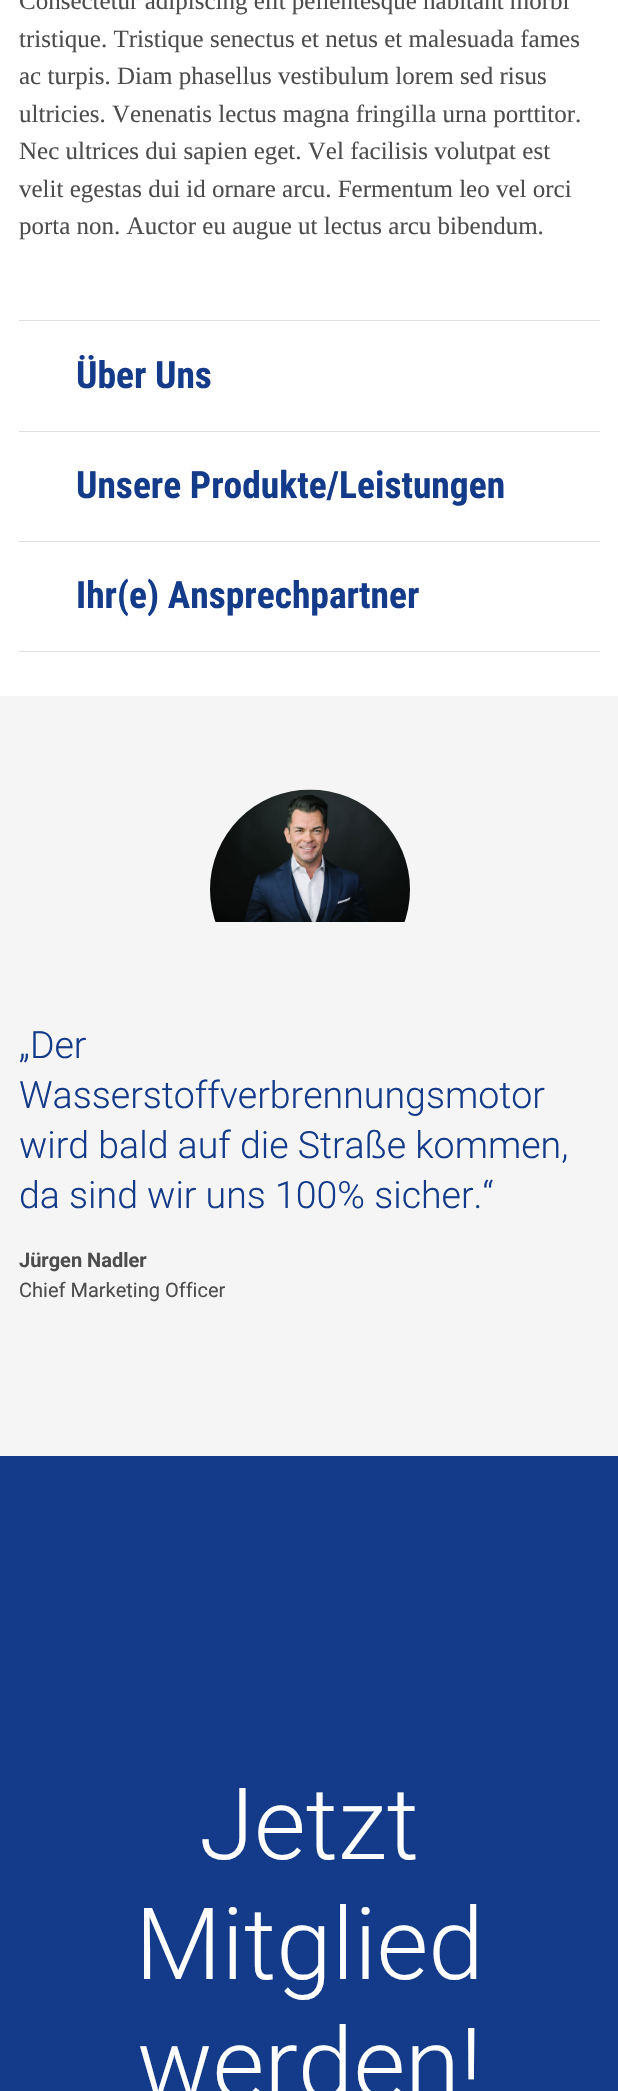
void draw(SkCanvas* canvas) {
    SkPaint paint;
    paint.setAntiAlias(true);
    canvas->clear(0xFFFFFFFF);
    SkFont font1(fontMgr->matchFamilyStyle("Liberation Serif", SkFontStyle::Normal()), 25);
    font1.setSubpixel(true);
    paint.setColor(0xFF4D4D4D);
    canvas->drawString("Consectetur adipiscing elit pellentesque habitant morbi", 19, 9, font1, paint);
    canvas->drawString("tristique. Tristique senectus et netus et malesuada fames", 19, 47, font1, paint);
    canvas->drawString("ac turpis. Diam phasellus vestibulum lorem sed risus", 19, 84, font1, paint);
    canvas->drawString("ultricies. Venenatis lectus magna fringilla urna porttitor.", 19, 122, font1, paint);
    canvas->drawString("Nec ultrices dui sapien eget. Vel facilisis volutpat est", 19, 159, font1, paint);
    canvas->drawString("velit egestas dui id ornare arcu. Fermentum leo vel orci", 19, 197, font1, paint);
    canvas->drawString("porta non. Auctor eu augue ut lectus arcu bibendum.", 19, 234, font1, paint);
    paint.setColor(0xFFDFDFDF);
    canvas->drawRect(SkRect::MakeXYWH(19, 320, 581, 1), paint);
    canvas->drawRect(SkRect::MakeXYWH(19, 651, 581, 1), paint);
    canvas->drawRect(SkRect::MakeXYWH(19, 431, 581, 1), paint);
    SkFont font2(fontMgr->matchFamilyStyle("Roboto Condensed", SkFontStyle::Bold()), 37.5f);
    font2.setSubpixel(true);
    paint.setColor(0xFF143B8A);
    canvas->drawString("Über Uns", 76, 388, font2, paint);
    paint.setColor(0xFFDFDFDF);
    canvas->drawRect(SkRect::MakeXYWH(19, 541, 581, 1), paint);
    paint.setColor(0xFF143B8A);
    canvas->drawString("Unsere Produkte/Leistungen", 76, 498, font2, paint);
    canvas->drawString("Ihr(e) Ansprechpartner", 76, 608, font2, paint);
    paint.setColor(0xFFF5F5F5);
    canvas->drawRect(SkRect::MakeXYWH(0, 696, 618, 760), paint);
    canvas->drawImageRect(SkImages::DeferredFromEncodedData(SkData::MakeFromFileName("img1.png")), SkRect::MakeXYWH(210, 789, 200, 133), SkSamplingOptions());
    SkFont font3(fontMgr->matchFamilyStyle("Roboto", SkFontStyle(300, SkFontStyle::kNormal_Width, SkFontStyle::kUpright_Slant)), 37.5f);
    font3.setSubpixel(true);
    paint.setColor(0xFF143B8A);
    canvas->drawString("„Der", 19, 1058, font3, paint);
    canvas->drawString("Wasserstoffverbrennungsmotor", 19, 1108, font3, paint);
    canvas->drawString("wird bald auf die Straße kommen,", 19, 1158, font3, paint);
    canvas->drawString("da sind wir uns 100% sicher.“", 19, 1208, font3, paint);
    SkFont font4(fontMgr->matchFamilyStyle("Roboto", SkFontStyle::Bold()), 20);
    font4.setSubpixel(true);
    paint.setColor(0xFF4D4D4D);
    canvas->drawString("Jürgen Nadler", 19, 1267, font4, paint);
    SkFont font5(fontMgr->matchFamilyStyle("Roboto", SkFontStyle::Normal()), 20);
    font5.setSubpixel(true);
    canvas->drawString("Chief Marketing Officer", 19, 1297, font5, paint);
    paint.setColor(0xFF143B8A);
    canvas->drawRect(SkRect::MakeXYWH(0, 1456, 618, 635), paint);
    SkFont font6(fontMgr->matchFamilyStyle("Roboto", SkFontStyle(300, SkFontStyle::kNormal_Width, SkFontStyle::kUpright_Slant)), 100);
    font6.setSubpixel(true);
    paint.setColor(0xFFFFFFFF);
    canvas->drawString("Jetzt", 199, 1859, font6, paint);
    canvas->drawString("Mitglied", 135, 1979, font6, paint);
    canvas->drawString("werden!", 137, 2099, font6, paint);
}
